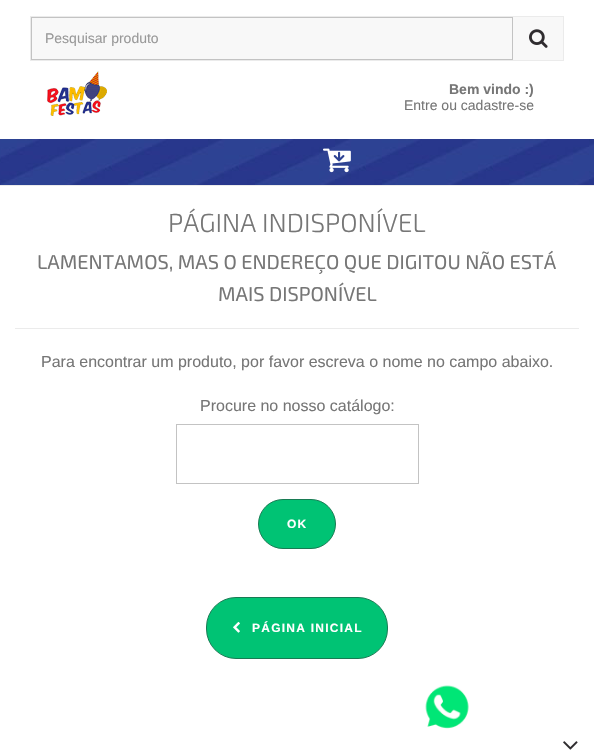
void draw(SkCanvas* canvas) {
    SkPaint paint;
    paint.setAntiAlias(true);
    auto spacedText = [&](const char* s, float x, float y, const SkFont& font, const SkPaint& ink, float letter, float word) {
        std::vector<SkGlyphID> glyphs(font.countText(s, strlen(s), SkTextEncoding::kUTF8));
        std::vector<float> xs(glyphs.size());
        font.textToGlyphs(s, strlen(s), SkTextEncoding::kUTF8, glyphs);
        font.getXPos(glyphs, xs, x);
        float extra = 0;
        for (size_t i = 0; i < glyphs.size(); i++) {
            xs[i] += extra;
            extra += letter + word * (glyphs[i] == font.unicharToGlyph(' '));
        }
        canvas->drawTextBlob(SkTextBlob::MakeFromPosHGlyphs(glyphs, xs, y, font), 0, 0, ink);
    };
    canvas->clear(0xFFFFFFFF);
    paint.setColor(0xFFEBEBEB);
    canvas->drawRect(SkRect::MakeXYWH(0, 185, 594, 1), paint);
    paint.setColor(0xFFF8F8F8);
    canvas->drawRect(SkRect::MakeXYWH(32, 17, 531, 43), paint);
    paint.setStyle(SkPaint::kStroke_Style);
    paint.setStrokeWidth(1);
    paint.setColor(0xFFEBEBEB);
    canvas->drawRect(SkRect::MakeXYWH(30.5f, 16.5f, 533, 44), paint);
    paint.setColor(0xFFC3C3C3);
    canvas->drawRect(SkRect::MakeXYWH(31.5f, 17.5f, 481, 42), paint);
    SkFont font1(fontMgr->matchFamilyStyle("Liberation Sans", SkFontStyle::Normal()), 14);
    font1.setSubpixel(true);
    paint.setStyle(SkPaint::kFill_Style);
    paint.setColor(0xFF999999);
    canvas->drawString("Pesquisar produto", 45, 43, font1, paint);
    canvas->drawImageRect(SkImages::DeferredFromEncodedData(SkData::MakeFromFileName("img1.png")), SkRect::MakeXYWH(529, 29, 19, 19), SkSamplingOptions());
    canvas->drawImageRect(SkImages::DeferredFromEncodedData(SkData::MakeFromFileName("img2.png")), SkRect::MakeXYWH(47, 71, 60, 45), SkSamplingOptions());
    SkFont font2(fontMgr->matchFamilyStyle("Liberation Sans", SkFontStyle::Bold()), 14);
    font2.setSubpixel(true);
    paint.setColor(0xFF767676);
    canvas->drawString("Bem vindo :)", 449, 94, font2, paint);
    canvas->drawString("Entre ou cadastre-se", 404, 110, font1, paint);
    canvas->drawImageRect(SkImages::DeferredFromEncodedData(SkData::MakeFromFileName("img3.png")), SkRect::MakeXYWH(0, 139, 594, 46), SkSamplingOptions());
    canvas->drawImageRect(SkImages::DeferredFromEncodedData(SkData::MakeFromFileName("img4.png")), SkRect::MakeXYWH(323, 148, 28, 25), SkSamplingOptions());
    SkFont font3(fontMgr->matchFamilyStyle("Exo 2", SkFontStyle(300, SkFontStyle::kNormal_Width, SkFontStyle::kUpright_Slant)), 26);
    font3.setSubpixel(true);
    canvas->drawString("PÁGINA INDISPONÍVEL", 168, 232, font3, paint);
    paint.setColor(0xFFEBEBEB);
    canvas->drawRect(SkRect::MakeXYWH(15, 328, 564, 1), paint);
    SkFont font4(fontMgr->matchFamilyStyle("Exo 2", SkFontStyle::Normal()), 20);
    font4.setSubpixel(true);
    paint.setColor(0xFF767676);
    canvas->drawString("LAMENTAMOS, MAS O ENDEREÇO QUE DIGITOU NÃO ESTÁ", 37, 269, font4, paint);
    canvas->drawString("MAIS DISPONÍVEL", 218, 301, font4, paint);
    SkFont font5(fontMgr->matchFamilyStyle("Liberation Sans", SkFontStyle::Normal()), 16);
    font5.setSubpixel(true);
    canvas->drawString("Para encontrar um produto, por favor escreva o nome no campo abaixo.", 41, 367, font5, paint);
    canvas->drawString("Procure no nosso catálogo:", 200, 411, font5, paint);
    paint.setStyle(SkPaint::kStroke_Style);
    paint.setColor(0xFFC3C3C3);
    canvas->drawRect(SkRect::MakeXYWH(176.5f, 424.5f, 242, 59), paint);
    paint.setStyle(SkPaint::kFill_Style);
    paint.setColor(0xFF00C374);
    canvas->drawRoundRect(SkRect::MakeXYWH(258.5f, 499.5f, 77, 49), 24.5f, 24.5f, paint);
    paint.setStyle(SkPaint::kStroke_Style);
    paint.setColor(0xFF187B53);
    canvas->drawRoundRect(SkRect::MakeXYWH(258.5f, 499.5f, 77, 49), 24.5f, 24.5f, paint);
    SkFont font6(fontMgr->matchFamilyStyle("Liberation Sans", SkFontStyle::Bold()), 12);
    font6.setSubpixel(true);
    paint.setStyle(SkPaint::kFill_Style);
    paint.setColor(0xFFFFFFFF);
    spacedText("OK", 287, 528, font6, paint, 1.25f, 0);
    paint.setColor(0xFF00C374);
    canvas->drawRoundRect(SkRect::MakeXYWH(206.5f, 597.5f, 181, 61), 29.5f, 29.5f, paint);
    paint.setStyle(SkPaint::kStroke_Style);
    paint.setColor(0xFF187B53);
    canvas->drawRoundRect(SkRect::MakeXYWH(206.5f, 597.5f, 181, 61), 29.5f, 29.5f, paint);
    canvas->drawImageRect(SkImages::DeferredFromEncodedData(SkData::MakeFromFileName("img5.png")), SkRect::MakeXYWH(233, 621, 7, 12), SkSamplingOptions());
    paint.setStyle(SkPaint::kFill_Style);
    paint.setColor(0xFFFFFFFF);
    spacedText("PÁGINA INICIAL", 252, 632, font6, paint, 1.25f, 0);
    canvas->drawImageRect(SkImages::DeferredFromEncodedData(SkData::MakeFromFileName("img6.png")), SkRect::MakeXYWH(563, 741, 15, 9), SkSamplingOptions());
    canvas->drawImageRect(SkImages::DeferredFromEncodedData(SkData::MakeFromFileName("img7.png")), SkRect::MakeXYWH(425, 685, 44, 44), SkSamplingOptions());
}
